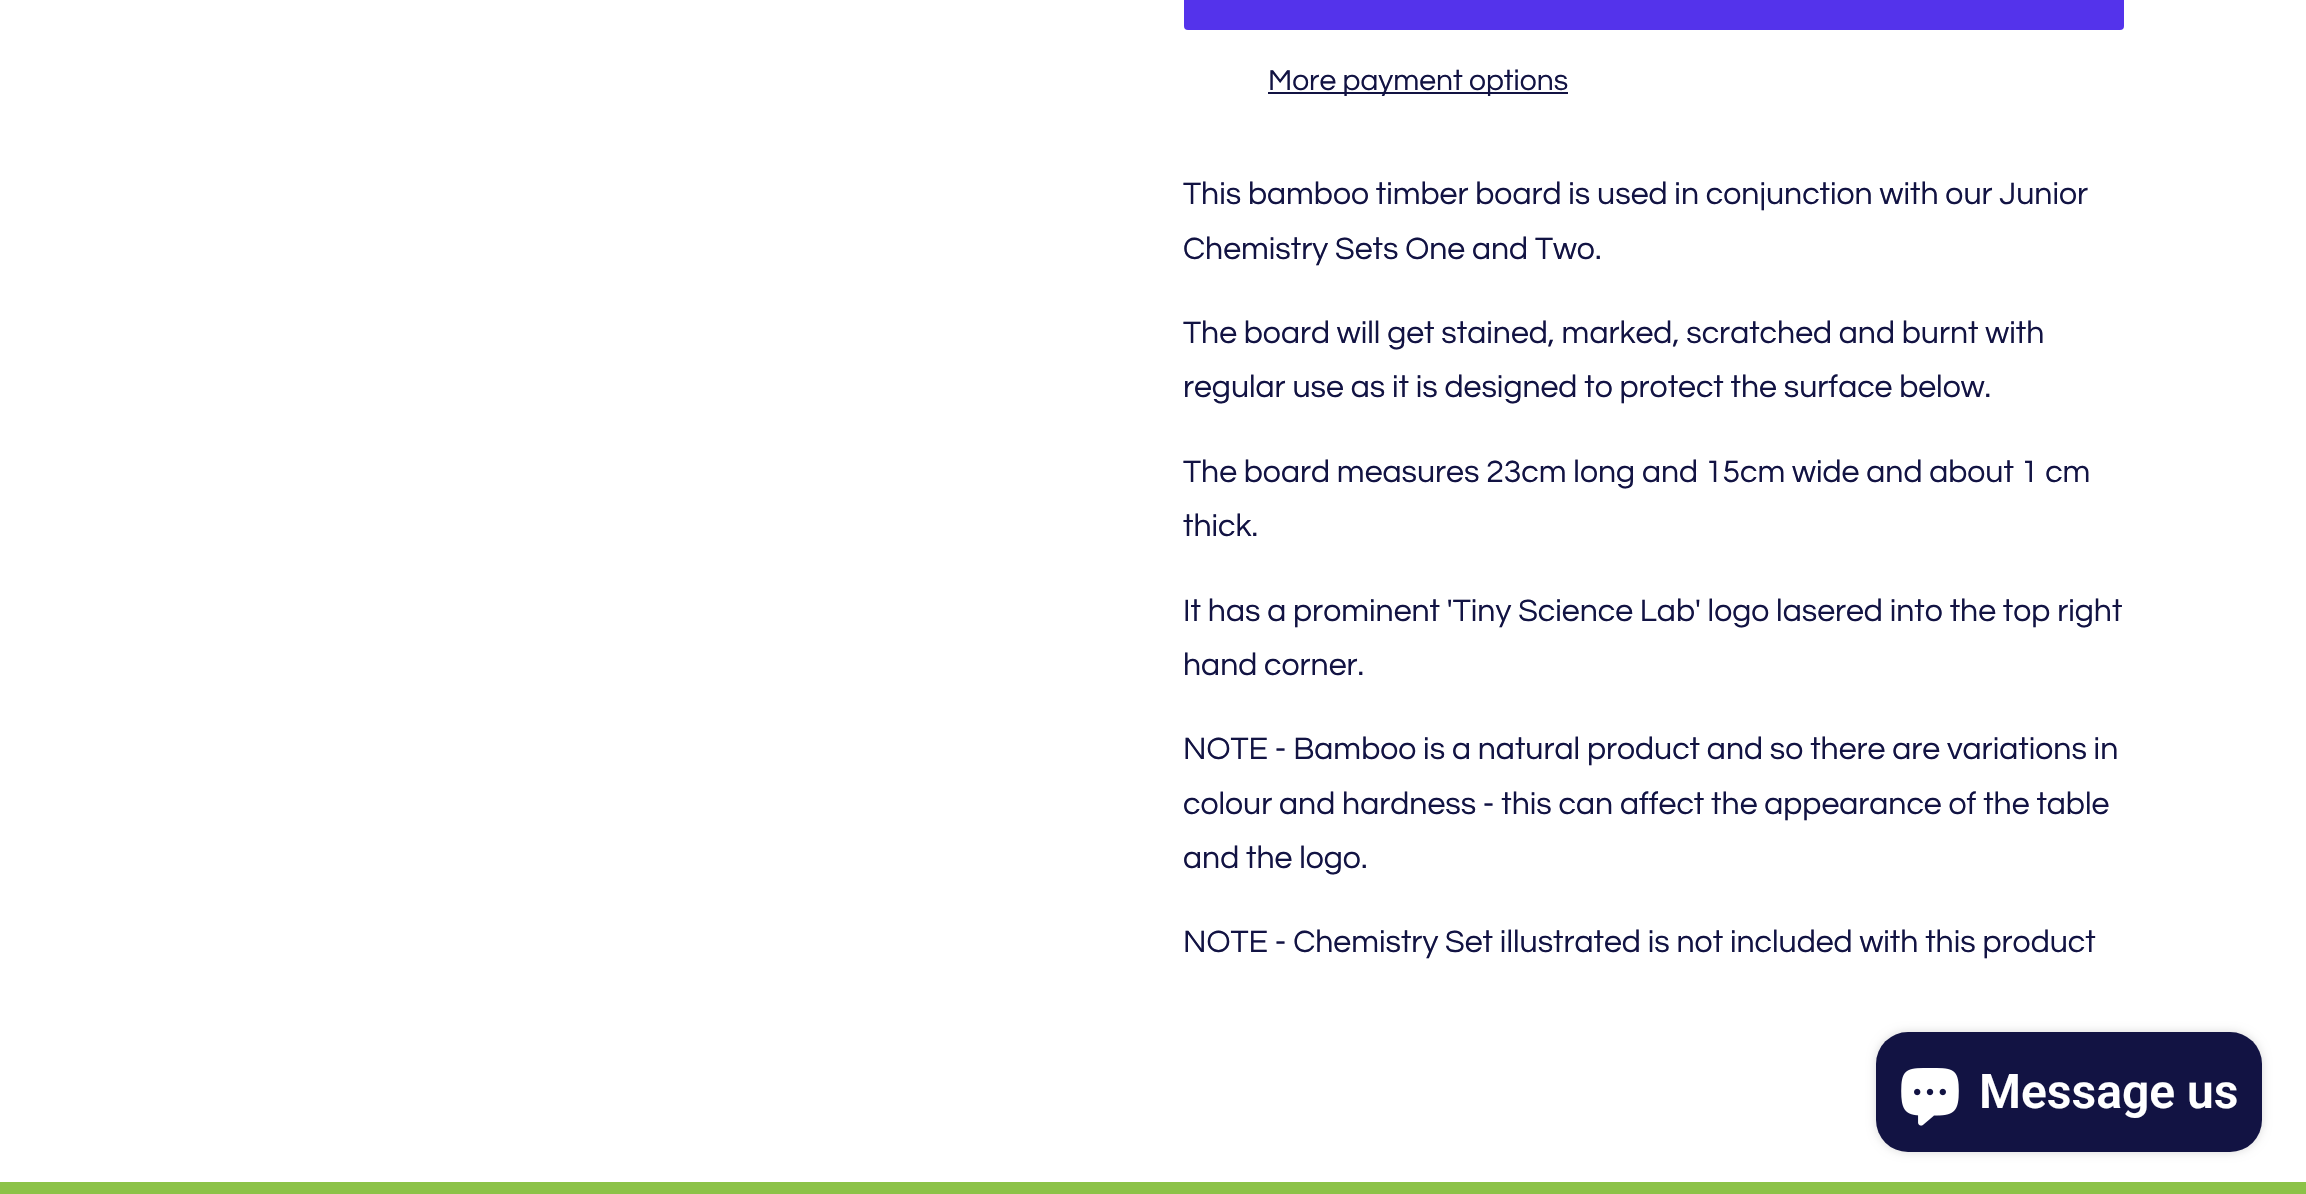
void draw(SkCanvas* canvas) {
    SkPaint paint;
    paint.setAntiAlias(true);
    canvas->clear(0xFFFFFFFF);
    paint.setColor(0xFF5433EB);
    canvas->drawRoundRect(SkRect::MakeXYWH(1184, -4, 940, 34), 4, 4, paint);
    paint.setColor(0xFF121343);
    canvas->drawRect(SkRect::MakeXYWH(1268, 92, 300, 2), paint);
    SkFont font1(fontMgr->matchFamilyStyle("Questrial", SkFontStyle::Normal()), 30);
    font1.setSubpixel(true);
    canvas->drawString("More payment options", 1268, 90, font1, paint);
    SkFont font2(fontMgr->matchFamilyStyle("Questrial", SkFontStyle::Normal()), 32);
    font2.setSubpixel(true);
    canvas->drawString("This bamboo timber board is used in conjunction with our Junior", 1183, 204, font2, paint);
    canvas->drawString("Chemistry Sets One and Two.", 1183, 259, font2, paint);
    canvas->drawString("The board will get stained, marked, scratched and burnt with", 1183, 343, font2, paint);
    canvas->drawString("regular use as it is designed to protect the surface below.", 1183, 397, font2, paint);
    canvas->drawString("The board measures 23cm long and 15cm wide and about 1 cm", 1183, 482, font2, paint);
    canvas->drawString("thick.", 1183, 536, font2, paint);
    canvas->drawString("It has a prominent 'Tiny Science Lab' logo lasered into the top right", 1183, 621, font2, paint);
    canvas->drawString("hand corner.", 1183, 675, font2, paint);
    canvas->drawString("NOTE - Bamboo is a natural product and so there are variations in", 1183, 759, font2, paint);
    canvas->drawString("colour and hardness - this can affect the appearance of the table", 1183, 814, font2, paint);
    canvas->drawString("and the logo.", 1183, 868, font2, paint);
    canvas->drawString("NOTE - Chemistry Set illustrated is not included with this product", 1183, 952, font2, paint);
    paint.setColor(0x26000000);
    paint.setMaskFilter(SkMaskFilter::MakeBlur(kNormal_SkBlurStyle, 5));
    canvas->drawRoundRect(SkRect::MakeXYWH(1876, 1032, 386, 120), 32, 32, paint);
    paint.setMaskFilter(nullptr);
    paint.setColor(0xFF121343);
    canvas->drawRoundRect(SkRect::MakeXYWH(1876, 1032, 386, 120), 32, 32, paint);
    canvas->drawImageRect(SkImages::DeferredFromEncodedData(SkData::MakeFromFileName("img1.png")), SkRect::MakeXYWH(1901, 1068, 58, 58), SkSamplingOptions());
    SkFont font3(fontMgr->matchFamilyStyle("Roboto", SkFontStyle(600, SkFontStyle::kNormal_Width, SkFontStyle::kUpright_Slant)), 48);
    font3.setSubpixel(true);
    paint.setColor(0xFFFFFFFF);
    canvas->drawString("Message us", 1979, 1108, font3, paint);
    paint.setColor(0xFF8CC248);
    canvas->drawRect(SkRect::MakeXYWH(0, 1182, 2306, 12), paint);
}
